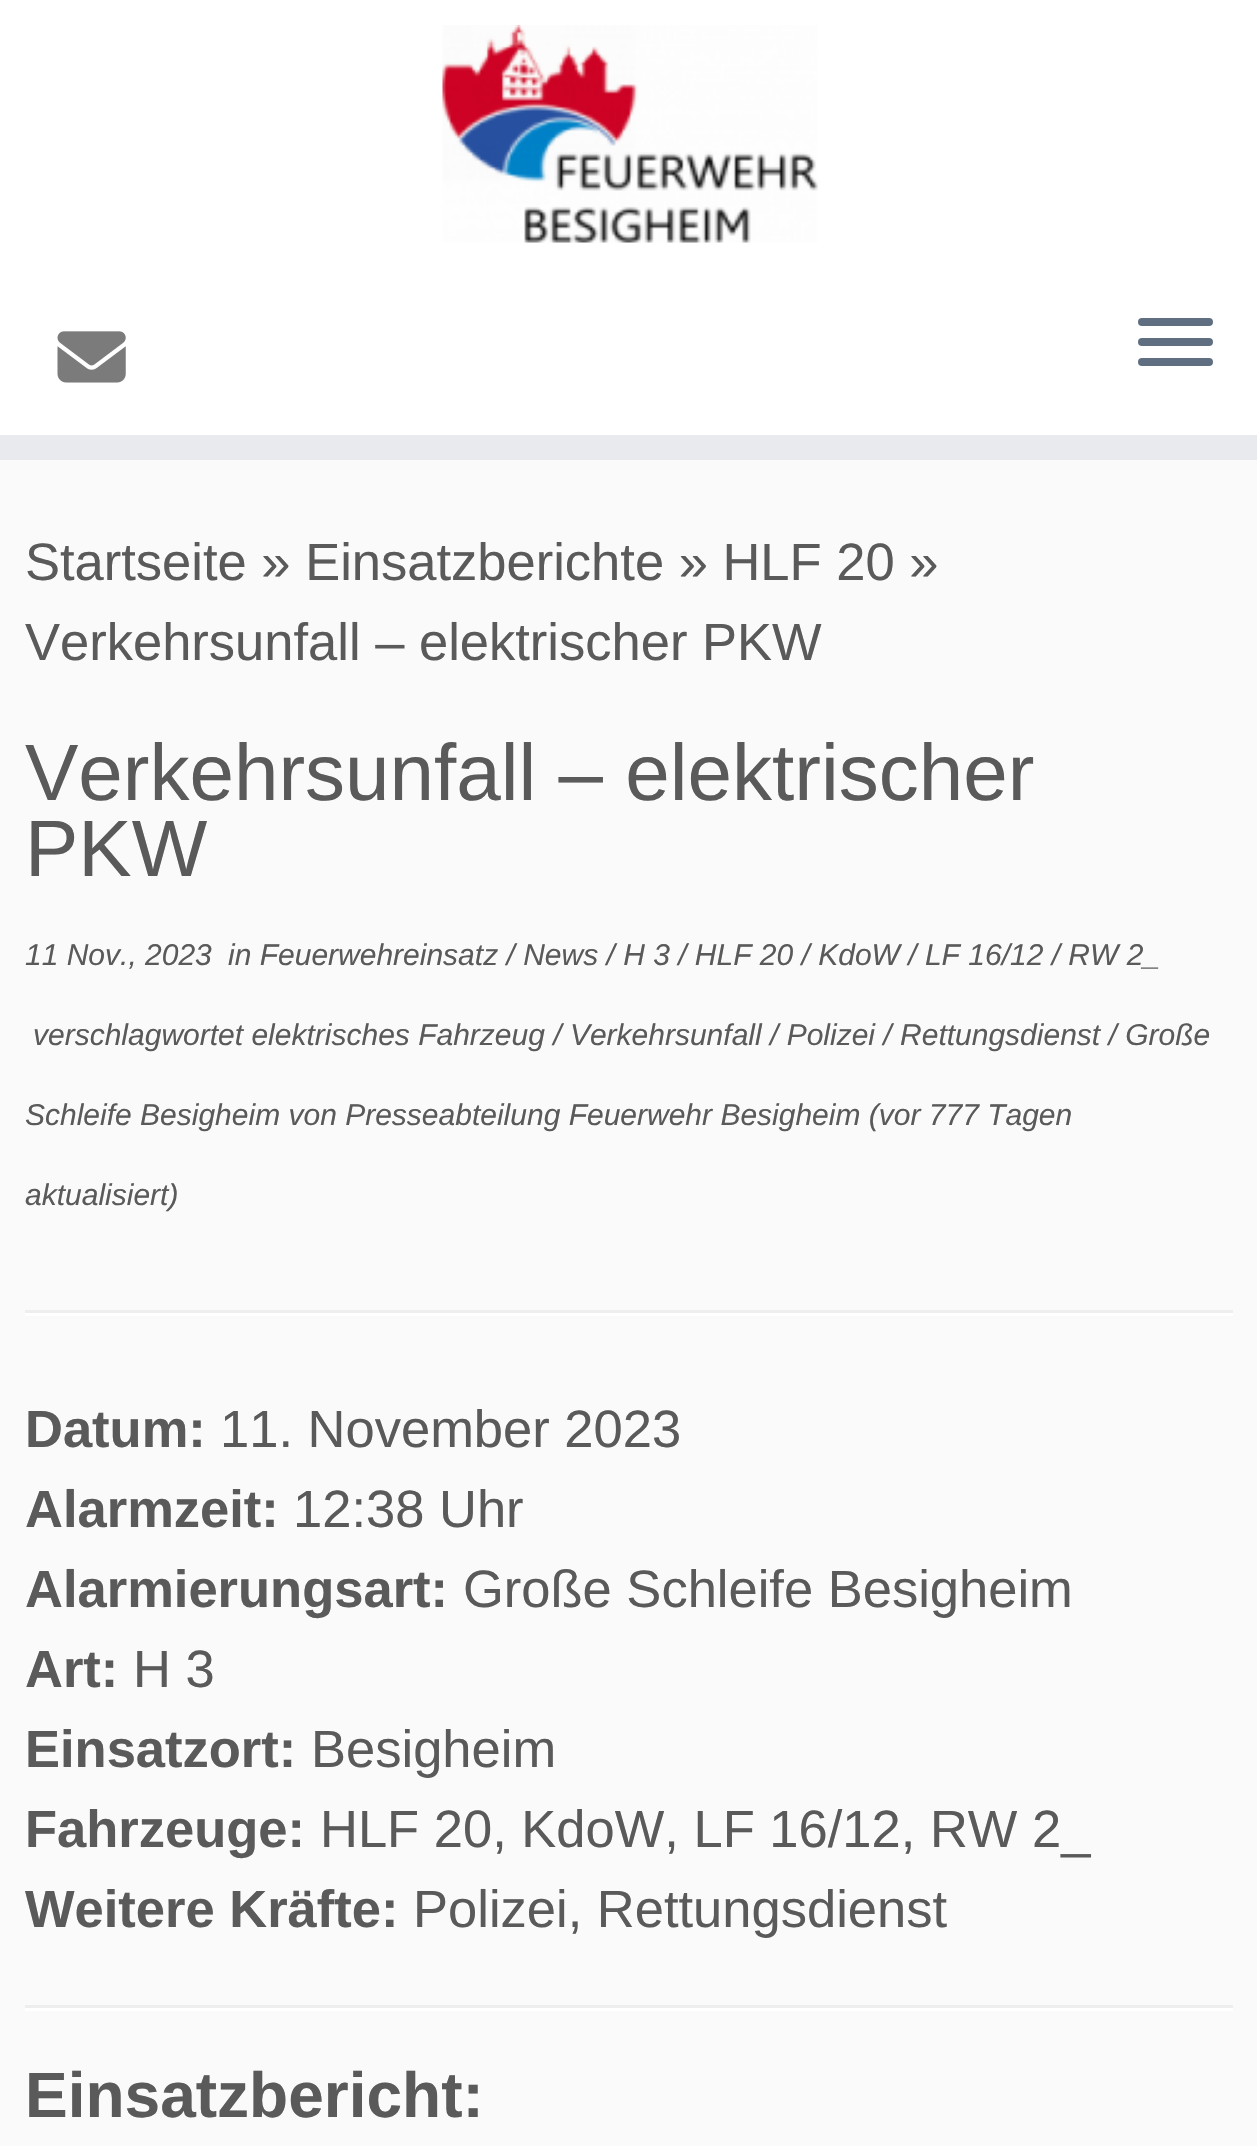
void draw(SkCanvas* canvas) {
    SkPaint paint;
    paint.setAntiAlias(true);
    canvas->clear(0xFFFAFAFA);
    paint.setColor(0xFFFFFFFF);
    canvas->drawRect(SkRect::MakeXYWH(0, 0, 1257, 435), paint);
    paint.setColor(0xFFE9EAEE);
    canvas->drawRect(SkRect::MakeXYWH(0, 435, 1257, 25), paint);
    canvas->drawImageRect(SkImages::DeferredFromEncodedData(SkData::MakeFromFileName("img1.png")), SkRect::MakeXYWH(442, 25, 376, 218), SkSamplingOptions());
    canvas->drawImageRect(SkImages::DeferredFromEncodedData(SkData::MakeFromFileName("img2.png")), SkRect::MakeXYWH(57, 331, 69, 52), SkSamplingOptions());
    paint.setColor(0xFF5F6F81);
    canvas->drawRoundRect(SkRect::MakeXYWH(1138, 318, 75, 8), 4, 4, paint);
    canvas->drawRoundRect(SkRect::MakeXYWH(1138, 338, 75, 8), 4, 4, paint);
    canvas->drawRoundRect(SkRect::MakeXYWH(1138, 358, 75, 8), 4, 4, paint);
    SkFont font1(fontMgr->matchFamilyStyle("Liberation Sans", SkFontStyle::Normal()), 52.5f);
    font1.setSubpixel(true);
    paint.setColor(0xFF5A5A5A);
    canvas->drawString("Startseite » Einsatzberichte » HLF 20 »", 25, 580, font1, paint);
    canvas->drawString("Verkehrsunfall – elektrischer PKW", 25, 660, font1, paint);
    SkFont font2(fontMgr->matchFamilyStyle("Liberation Sans", SkFontStyle::Normal()), 80);
    font2.setSubpixel(true);
    canvas->drawString("Verkehrsunfall – elektrischer", 25, 800, font2, paint);
    canvas->drawString("PKW", 25, 876, font2, paint);
    SkFont font3(fontMgr->matchFamilyStyle("Liberation Sans", SkFontStyle::Italic()), 30);
    font3.setSubpixel(true);
    canvas->drawString("11 Nov., 2023", 25, 965, font3, paint);
    canvas->drawString("in Feuerwehreinsatz / News / H 3 / HLF 20 / KdoW / LF 16/12 / RW 2_", 228, 965, font3, paint);
    canvas->drawString("verschlagwortet elektrisches Fahrzeug / Verkehrsunfall / Polizei / Rettungsdienst / Große", 33, 1045, font3, paint);
    canvas->drawString("Schleife Besigheim von Presseabteilung Feuerwehr Besigheim (vor 777 Tagen", 25, 1125, font3, paint);
    canvas->drawString("aktualisiert)", 25, 1205, font3, paint);
    paint.setColor(0xFFEEEEEE);
    canvas->drawRect(SkRect::MakeXYWH(25, 1310, 1208, 3), paint);
    paint.setColor(0xFFFFFFFF);
    canvas->drawRect(SkRect::MakeXYWH(25, 1313, 1208, 3), paint);
    SkFont font4(fontMgr->matchFamilyStyle("Liberation Sans", SkFontStyle::Bold()), 52.5f);
    font4.setSubpixel(true);
    paint.setColor(0xFF5A5A5A);
    canvas->drawString("Datum:", 25, 1447, font4, paint);
    canvas->drawString("11. November 2023", 220, 1447, font1, paint);
    canvas->drawString("Alarmzeit:", 25, 1527, font4, paint);
    canvas->drawString("12:38 Uhr", 293, 1527, font1, paint);
    canvas->drawString("Alarmierungsart:", 25, 1607, font4, paint);
    canvas->drawString("Große Schleife Besigheim", 463, 1607, font1, paint);
    canvas->drawString("Art:", 25, 1687, font4, paint);
    canvas->drawString("H 3", 133, 1687, font1, paint);
    canvas->drawString("Einsatzort:", 25, 1767, font4, paint);
    canvas->drawString("Besigheim", 311, 1767, font1, paint);
    canvas->drawString("Fahrzeuge:", 25, 1847, font4, paint);
    canvas->drawString("HLF 20, KdoW, LF 16/12, RW 2_", 320, 1847, font1, paint);
    canvas->drawString("Weitere Kräfte:", 25, 1927, font4, paint);
    canvas->drawString("Polizei, Rettungsdienst", 413, 1927, font1, paint);
    paint.setColor(0xFFEEEEEE);
    canvas->drawRect(SkRect::MakeXYWH(25, 2005, 1208, 3), paint);
    paint.setColor(0xFFFFFFFF);
    canvas->drawRect(SkRect::MakeXYWH(25, 2008, 1208, 3), paint);
    SkFont font5(fontMgr->matchFamilyStyle("Liberation Sans", SkFontStyle::Bold()), 64);
    font5.setSubpixel(true);
    paint.setColor(0xFF5A5A5A);
    canvas->drawString("Einsatzbericht:", 25, 2117, font5, paint);
}
